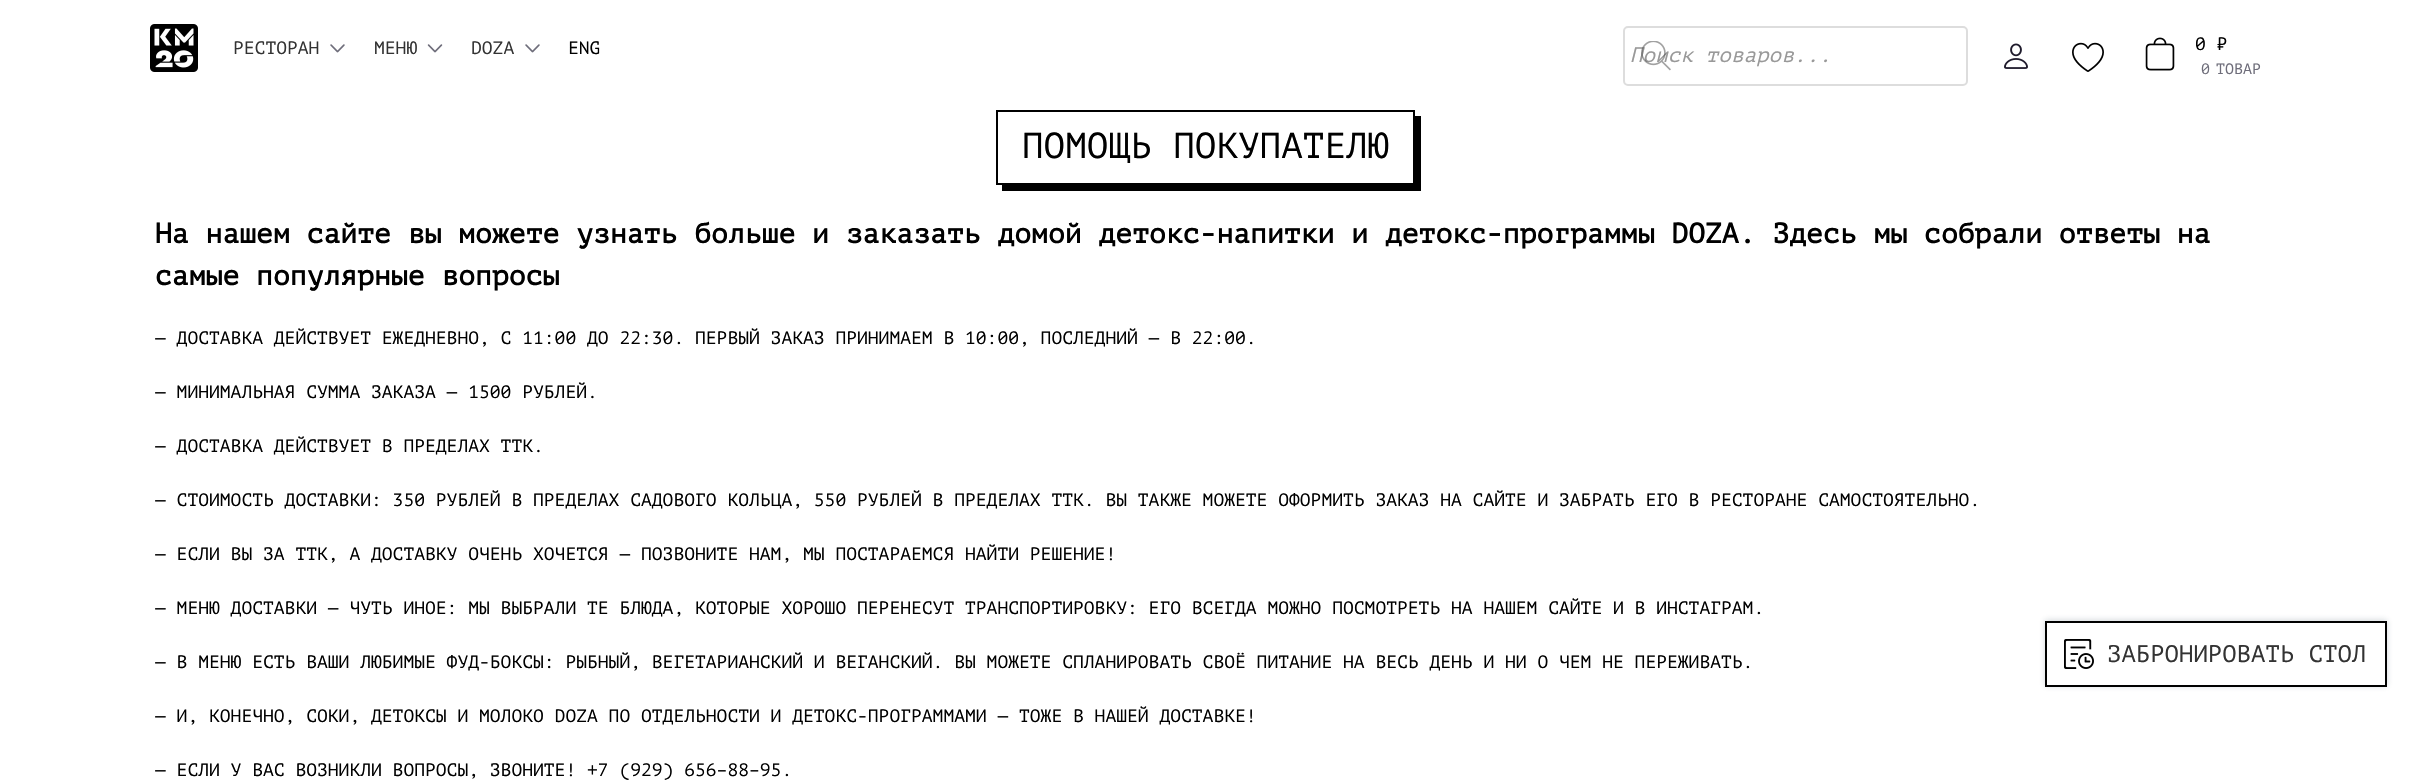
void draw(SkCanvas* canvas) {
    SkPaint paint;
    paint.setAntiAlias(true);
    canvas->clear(0xFFFFFFFF);
    canvas->drawImageRect(SkImages::DeferredFromEncodedData(SkData::MakeFromFileName("img1.png")), SkRect::MakeXYWH(150, 24, 48, 48), SkSamplingOptions());
    SkFont font1(fontMgr->matchFamilyStyle("PT Mono", SkFontStyle::Normal()), 18);
    font1.setSubpixel(true);
    paint.setColor(0xFF333333);
    canvas->drawString("РЕСТОРАН", 233, 54, font1, paint);
    canvas->drawImageRect(SkImages::DeferredFromEncodedData(SkData::MakeFromFileName("img2.png")), SkRect::MakeXYWH(330, 44, 15, 9), SkSamplingOptions());
    canvas->drawString("МЕНЮ", 374, 54, font1, paint);
    canvas->drawImageRect(SkImages::DeferredFromEncodedData(SkData::MakeFromFileName("img3.png")), SkRect::MakeXYWH(427, 44, 16, 9), SkSamplingOptions());
    canvas->drawString("DOZA", 471, 54, font1, paint);
    canvas->drawImageRect(SkImages::DeferredFromEncodedData(SkData::MakeFromFileName("img2.png")), SkRect::MakeXYWH(525, 44, 15, 9), SkSamplingOptions());
    paint.setColor(0xFF000000);
    canvas->drawString("ENG", 568, 54, font1, paint);
    paint.setStyle(SkPaint::kStroke_Style);
    paint.setStrokeWidth(2);
    paint.setColor(0xFFDDDDDD);
    canvas->drawRoundRect(SkRect::MakeXYWH(1624, 27, 343, 58), 4, 4, paint);
    SkFont font2(fontMgr->matchFamilyStyle("PT Mono", SkFontStyle::Italic()), 21);
    font2.setSubpixel(true);
    paint.setStyle(SkPaint::kFill_Style);
    paint.setColor(0xFF999999);
    canvas->drawString("Поиск товаров...", 1630, 62, font2, paint);
    canvas->drawImageRect(SkImages::DeferredFromEncodedData(SkData::MakeFromFileName("img4.png")), SkRect::MakeXYWH(1641, 41, 30, 30), SkSamplingOptions());
    canvas->drawImageRect(SkImages::DeferredFromEncodedData(SkData::MakeFromFileName("img5.png")), SkRect::MakeXYWH(2004, 43, 24, 26), SkSamplingOptions());
    canvas->drawImageRect(SkImages::DeferredFromEncodedData(SkData::MakeFromFileName("img6.png")), SkRect::MakeXYWH(2072, 42, 32, 30), SkSamplingOptions());
    canvas->drawImageRect(SkImages::DeferredFromEncodedData(SkData::MakeFromFileName("img7.png")), SkRect::MakeXYWH(2145, 37, 30, 34), SkSamplingOptions());
    paint.setColor(0xFF000000);
    canvas->drawString("0 ₽", 2195, 50, font1, paint);
    SkFont font3(fontMgr->matchFamilyStyle("PT Mono", SkFontStyle::Normal()), 15);
    font3.setSubpixel(true);
    paint.setColor(0xFF6E6D7A);
    canvas->drawString("0", 2201, 74, font3, paint);
    canvas->drawString("ТОВАР", 2216, 74, font3, paint);
    paint.setColor(0xFF000000);
    canvas->drawPath(SkPathBuilder().moveTo(1002, 184).lineTo(1002, 191).lineTo(1421, 191).lineTo(1421, 116).lineTo(1414, 116).lineTo(1414, 184).close().detach(), paint);
    paint.setStyle(SkPaint::kStroke_Style);
    canvas->drawRect(SkRect::MakeXYWH(997, 111, 417, 73), paint);
    SkFont font4(fontMgr->matchFamilyStyle("PT Mono", SkFontStyle::Normal()), 36);
    font4.setSubpixel(true);
    paint.setStyle(SkPaint::kFill_Style);
    canvas->drawString("ПОМОЩЬ ПОКУПАТЕЛЮ", 1022, 158, font4, paint);
    SkFont font5(fontMgr->matchFamilyStyle("PT Mono", SkFontStyle::Bold()), 28.08f);
    font5.setSubpixel(true);
    canvas->drawString("На нашем сайте вы можете узнать больше и заказать домой детокс-напитки и детокс-программы DOZA. Здесь мы собрали ответы на", 155, 243, font5, paint);
    canvas->drawString("самые популярные вопросы", 155, 285, font5, paint);
    canvas->drawString("— ДОСТАВКА ДЕЙСТВУЕТ ЕЖЕДНЕВНО, С 11:00 ДО 22:30. ПЕРВЫЙ ЗАКАЗ ПРИНИМАЕМ В 10:00, ПОСЛЕДНИЙ — В 22:00.", 155, 344, font1, paint);
    canvas->drawString("— МИНИМАЛЬНАЯ СУММА ЗАКАЗА — 1500 РУБЛЕЙ.", 155, 398, font1, paint);
    canvas->drawString("— ДОСТАВКА ДЕЙСТВУЕТ В ПРЕДЕЛАХ ТТК.", 155, 452, font1, paint);
    canvas->drawString("— СТОИМОСТЬ ДОСТАВКИ: 350 РУБЛЕЙ В ПРЕДЕЛАХ САДОВОГО КОЛЬЦА, 550 РУБЛЕЙ В ПРЕДЕЛАХ ТТК. ВЫ ТАКЖЕ МОЖЕТЕ ОФОРМИТЬ ЗАКАЗ НА САЙТЕ И ЗАБРАТЬ ЕГО В РЕСТОРАНЕ САМОСТОЯТЕЛЬНО.", 155, 506, font1, paint);
    canvas->drawString("— ЕСЛИ ВЫ ЗА ТТК, А ДОСТАВКУ ОЧЕНЬ ХОЧЕТСЯ — ПОЗВОНИТЕ НАМ, МЫ ПОСТАРАЕМСЯ НАЙТИ РЕШЕНИЕ!", 155, 560, font1, paint);
    canvas->drawString("— МЕНЮ ДОСТАВКИ — ЧУТЬ ИНОЕ: МЫ ВЫБРАЛИ ТЕ БЛЮДА, КОТОРЫЕ ХОРОШО ПЕРЕНЕСУТ ТРАНСПОРТИРОВКУ: ЕГО ВСЕГДА МОЖНО ПОСМОТРЕТЬ НА НАШЕМ САЙТЕ И В ИНСТАГРАМ.", 155, 614, font1, paint);
    canvas->drawString("— В МЕНЮ ЕСТЬ ВАШИ ЛЮБИМЫЕ ФУД-БОКСЫ: РЫБНЫЙ, ВЕГЕТАРИАНСКИЙ И ВЕГАНСКИЙ. ВЫ МОЖЕТЕ СПЛАНИРОВАТЬ СВОЁ ПИТАНИЕ НА ВЕСЬ ДЕНЬ И НИ О ЧЕМ НЕ ПЕРЕЖИВАТЬ.", 155, 668, font1, paint);
    canvas->drawString("— И, КОНЕЧНО, СОКИ, ДЕТОКСЫ И МОЛОКО DOZA ПО ОТДЕЛЬНОСТИ И ДЕТОКС-ПРОГРАММАМИ — ТОЖЕ В НАШЕЙ ДОСТАВКЕ!", 155, 722, font1, paint);
    canvas->drawString("— ЕСЛИ У ВАС ВОЗНИКЛИ ВОПРОСЫ, ЗВОНИТЕ! +7 (929) 656–88–95.", 155, 776, font1, paint);
    paint.setColor(0x33223C50);
    paint.setMaskFilter(SkMaskFilter::MakeBlur(kNormal_SkBlurStyle, 3));
    canvas->drawRect(SkRect::MakeXYWH(2045, 620, 342, 66), paint);
    paint.setMaskFilter(nullptr);
    paint.setColor(0xFFFFFFFF);
    canvas->drawRect(SkRect::MakeXYWH(2047, 623, 338, 62), paint);
    canvas->drawImageRect(SkImages::DeferredFromEncodedData(SkData::MakeFromFileName("img8.png")), SkRect::MakeXYWH(2064, 639, 30, 30), SkSamplingOptions());
    paint.setStyle(SkPaint::kStroke_Style);
    paint.setColor(0xFF000000);
    canvas->drawRect(SkRect::MakeXYWH(2046, 622, 340, 64), paint);
    SkFont font6(fontMgr->matchFamilyStyle("PT Mono", SkFontStyle::Normal()), 24);
    font6.setSubpixel(true);
    paint.setStyle(SkPaint::kFill_Style);
    paint.setColor(0xFF333333);
    canvas->drawString("ЗАБРОНИРОВАТЬ СТОЛ", 2107, 662, font6, paint);
}
